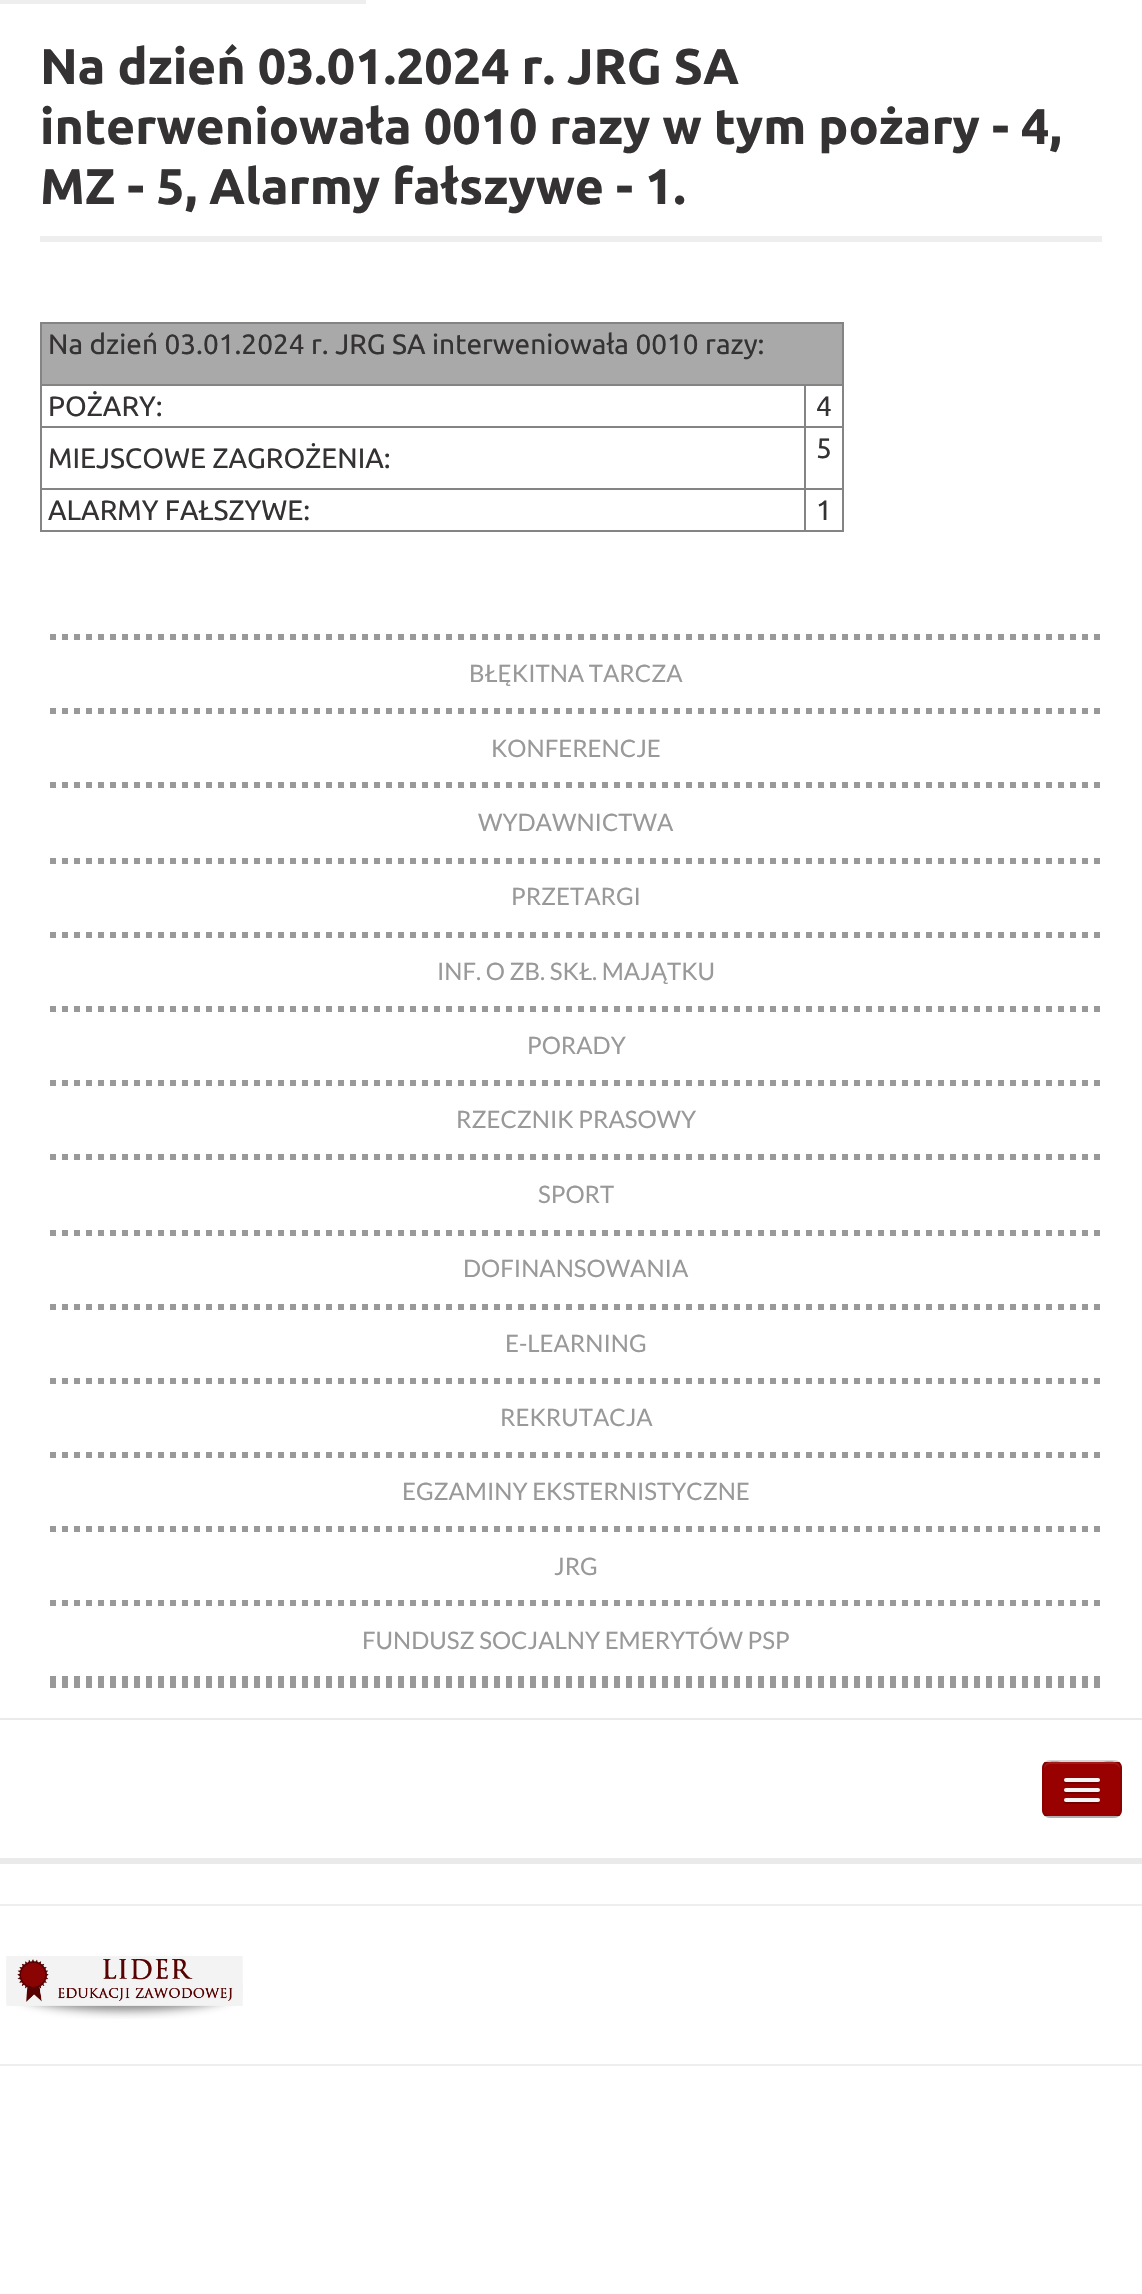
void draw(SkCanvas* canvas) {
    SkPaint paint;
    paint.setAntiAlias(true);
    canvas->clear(0xFFFFFFFF);
    paint.setColor(0xFFEEEEEE);
    canvas->drawRect(SkRect::MakeXYWH(0, 0, 366, 4), paint);
    canvas->drawRect(SkRect::MakeXYWH(40, 236, 1062, 6), paint);
    SkFont font1(fontMgr->matchFamilyStyle("Ubuntu", SkFontStyle::Bold()), 50);
    font1.setSubpixel(true);
    paint.setColor(0xFF353234);
    canvas->drawString("Na dzień 03.01.2024 r. JRG SA", 40, 84, font1, paint);
    canvas->drawString("interweniowała 0010 razy w tym pożary - 4,", 40, 144, font1, paint);
    canvas->drawString("MZ - 5, Alarmy fałszywe - 1.", 40, 204, font1, paint);
    paint.setColor(0xFF868383);
    canvas->drawRect(SkRect::MakeXYWH(40, 322, 804, 2), paint);
    canvas->drawRect(SkRect::MakeXYWH(842, 322, 2, 210), paint);
    canvas->drawRect(SkRect::MakeXYWH(40, 530, 804, 2), paint);
    canvas->drawRect(SkRect::MakeXYWH(40, 322, 2, 210), paint);
    canvas->drawRect(SkRect::MakeXYWH(40, 384, 804, 2), paint);
    paint.setColor(0xFFA9A9A9);
    canvas->drawRect(SkRect::MakeXYWH(42, 324, 800, 60), paint);
    SkFont font2(fontMgr->matchFamilyStyle("Ubuntu", SkFontStyle::Normal()), 28);
    font2.setSubpixel(true);
    paint.setColor(0xFF353234);
    canvas->drawString("Na dzień 03.01.2024 r. JRG SA interweniowała 0010 razy:", 48, 354, font2, paint);
    canvas->drawString("POŻARY:", 48, 416, font2, paint);
    paint.setColor(0xFF868383);
    canvas->drawRect(SkRect::MakeXYWH(804, 426, 40, 2), paint);
    canvas->drawRect(SkRect::MakeXYWH(804, 488, 40, 2), paint);
    canvas->drawRect(SkRect::MakeXYWH(804, 488, 2, 44), paint);
    canvas->drawRect(SkRect::MakeXYWH(40, 488, 766, 2), paint);
    canvas->drawRect(SkRect::MakeXYWH(804, 426, 2, 64), paint);
    canvas->drawRect(SkRect::MakeXYWH(40, 426, 766, 2), paint);
    canvas->drawRect(SkRect::MakeXYWH(804, 384, 2, 44), paint);
    paint.setColor(0xFF353234);
    canvas->drawString("4", 816, 416, font2, paint);
    canvas->drawString("MIEJSCOWE ZAGROŻENIA:", 48, 468, font2, paint);
    canvas->drawString("5", 816, 458, font2, paint);
    canvas->drawString("ALARMY FAŁSZYWE:", 48, 520, font2, paint);
    canvas->drawString("1", 816, 520, font2, paint);
    paint.setStyle(SkPaint::kStroke_Style);
    paint.setStrokeWidth(6);
    paint.setColor(0xFF999999);
    paint.setPathEffect(SkDashPathEffect::Make({{6, 6}}, 0));
    canvas->drawPath(SkPathBuilder().moveTo(50, 637).lineTo(1102, 637).detach(), paint);
    paint.setPathEffect(nullptr);
    paint.setPathEffect(SkDashPathEffect::Make({{6, 6}}, 0));
    canvas->drawPath(SkPathBuilder().moveTo(50, 1685).lineTo(1102, 1685).detach(), paint);
    paint.setPathEffect(nullptr);
    paint.setPathEffect(SkDashPathEffect::Make({{6, 6}}, 0));
    canvas->drawPath(SkPathBuilder().moveTo(50, 711).lineTo(1102, 711).detach(), paint);
    paint.setPathEffect(nullptr);
    SkFont font3(fontMgr->matchFamilyStyle("Lato", SkFontStyle::Normal()), 24);
    font3.setSubpixel(true);
    paint.setStyle(SkPaint::kFill_Style);
    canvas->drawString("BŁĘKITNA TARCZA", 469, 682, font3, paint);
    paint.setStyle(SkPaint::kStroke_Style);
    paint.setPathEffect(SkDashPathEffect::Make({{6, 6}}, 0));
    canvas->drawPath(SkPathBuilder().moveTo(50, 785).lineTo(1102, 785).detach(), paint);
    paint.setPathEffect(nullptr);
    paint.setStyle(SkPaint::kFill_Style);
    canvas->drawString("KONFERENCJE", 491, 757, font3, paint);
    paint.setStyle(SkPaint::kStroke_Style);
    paint.setPathEffect(SkDashPathEffect::Make({{6, 6}}, 0));
    canvas->drawPath(SkPathBuilder().moveTo(50, 861).lineTo(1102, 861).detach(), paint);
    paint.setPathEffect(nullptr);
    paint.setStyle(SkPaint::kFill_Style);
    canvas->drawString("WYDAWNICTWA", 478, 831, font3, paint);
    paint.setStyle(SkPaint::kStroke_Style);
    paint.setPathEffect(SkDashPathEffect::Make({{6, 6}}, 0));
    canvas->drawPath(SkPathBuilder().moveTo(50, 935).lineTo(1102, 935).detach(), paint);
    paint.setPathEffect(nullptr);
    paint.setStyle(SkPaint::kFill_Style);
    canvas->drawString("PRZETARGI", 511, 905, font3, paint);
    paint.setStyle(SkPaint::kStroke_Style);
    paint.setPathEffect(SkDashPathEffect::Make({{6, 6}}, 0));
    canvas->drawPath(SkPathBuilder().moveTo(50, 1009).lineTo(1102, 1009).detach(), paint);
    paint.setPathEffect(nullptr);
    paint.setStyle(SkPaint::kFill_Style);
    canvas->drawString("INF. O ZB. SKŁ. MAJĄTKU", 437, 980, font3, paint);
    paint.setStyle(SkPaint::kStroke_Style);
    paint.setPathEffect(SkDashPathEffect::Make({{6, 6}}, 0));
    canvas->drawPath(SkPathBuilder().moveTo(50, 1083).lineTo(1102, 1083).detach(), paint);
    paint.setPathEffect(nullptr);
    paint.setStyle(SkPaint::kFill_Style);
    canvas->drawString("PORADY", 527, 1054, font3, paint);
    paint.setStyle(SkPaint::kStroke_Style);
    paint.setPathEffect(SkDashPathEffect::Make({{6, 6}}, 0));
    canvas->drawPath(SkPathBuilder().moveTo(50, 1157).lineTo(1102, 1157).detach(), paint);
    paint.setPathEffect(nullptr);
    paint.setStyle(SkPaint::kFill_Style);
    canvas->drawString("RZECZNIK PRASOWY", 456, 1128, font3, paint);
    paint.setStyle(SkPaint::kStroke_Style);
    paint.setPathEffect(SkDashPathEffect::Make({{6, 6}}, 0));
    canvas->drawPath(SkPathBuilder().moveTo(50, 1233).lineTo(1102, 1233).detach(), paint);
    paint.setPathEffect(nullptr);
    paint.setStyle(SkPaint::kFill_Style);
    canvas->drawString("SPORT", 538, 1203, font3, paint);
    paint.setStyle(SkPaint::kStroke_Style);
    paint.setPathEffect(SkDashPathEffect::Make({{6, 6}}, 0));
    canvas->drawPath(SkPathBuilder().moveTo(50, 1307).lineTo(1102, 1307).detach(), paint);
    paint.setPathEffect(nullptr);
    paint.setStyle(SkPaint::kFill_Style);
    canvas->drawString("DOFINANSOWANIA", 463, 1277, font3, paint);
    paint.setStyle(SkPaint::kStroke_Style);
    paint.setPathEffect(SkDashPathEffect::Make({{6, 6}}, 0));
    canvas->drawPath(SkPathBuilder().moveTo(50, 1381).lineTo(1102, 1381).detach(), paint);
    paint.setPathEffect(nullptr);
    paint.setStyle(SkPaint::kFill_Style);
    canvas->drawString("E-LEARNING", 505, 1352, font3, paint);
    paint.setStyle(SkPaint::kStroke_Style);
    paint.setPathEffect(SkDashPathEffect::Make({{6, 6}}, 0));
    canvas->drawPath(SkPathBuilder().moveTo(50, 1455).lineTo(1102, 1455).detach(), paint);
    paint.setPathEffect(nullptr);
    paint.setStyle(SkPaint::kFill_Style);
    canvas->drawString("REKRUTACJA", 500, 1426, font3, paint);
    paint.setStyle(SkPaint::kStroke_Style);
    paint.setPathEffect(SkDashPathEffect::Make({{6, 6}}, 0));
    canvas->drawPath(SkPathBuilder().moveTo(50, 1529).lineTo(1102, 1529).detach(), paint);
    paint.setPathEffect(nullptr);
    paint.setStyle(SkPaint::kFill_Style);
    canvas->drawString("EGZAMINY EKSTERNISTYCZNE", 402, 1500, font3, paint);
    paint.setStyle(SkPaint::kStroke_Style);
    paint.setPathEffect(SkDashPathEffect::Make({{6, 6}}, 0));
    canvas->drawPath(SkPathBuilder().moveTo(50, 1603).lineTo(1102, 1603).detach(), paint);
    paint.setPathEffect(nullptr);
    paint.setStyle(SkPaint::kFill_Style);
    canvas->drawString("JRG", 554, 1575, font3, paint);
    paint.setStyle(SkPaint::kStroke_Style);
    paint.setPathEffect(SkDashPathEffect::Make({{6, 6}}, 0));
    canvas->drawPath(SkPathBuilder().moveTo(50, 1679).lineTo(1102, 1679).detach(), paint);
    paint.setPathEffect(nullptr);
    paint.setStyle(SkPaint::kFill_Style);
    canvas->drawString("FUNDUSZ SOCJALNY EMERYTÓW PSP", 362, 1649, font3, paint);
    paint.setColor(0xFFEBEAEA);
    canvas->drawRect(SkRect::MakeXYWH(0, 1718, 1142, 2), paint);
    canvas->drawRect(SkRect::MakeXYWH(0, 1858, 1142, 6), paint);
    paint.setColor(0xFFEDEDED);
    canvas->drawRoundRect(SkRect::MakeXYWH(1042, 1760, 80, 58), 8, 8, paint);
    canvas->save();
    canvas->clipPath(SkPathBuilder().moveTo(1050, 1760).lineTo(1114, 1760).cubicTo(1118.5f, 1760, 1122, 1763.5f, 1122, 1768).lineTo(1122, 1810).cubicTo(1122, 1814.5f, 1118.5f, 1818, 1114, 1818).lineTo(1050, 1818).cubicTo(1045.5f, 1818, 1042, 1814.5f, 1042, 1810).lineTo(1042, 1768).cubicTo(1042, 1763.5f, 1045.5f, 1760, 1050, 1760).close().detach(), true);
    paint.setColor(0xFF990000);
    canvas->drawRect(SkRect::MakeXYWH(1042, 1762, 80, 54), paint);
    canvas->restore();
    paint.setColor(0xFFA31A1A);
    canvas->drawPath(SkPathBuilder().moveTo(1050, 1764).lineTo(1114, 1764).cubicTo(1117, 1764, 1120, 1767, 1120, 1770).cubicTo(1120, 1760, 1112, 1762, 1103, 1762).lineTo(1061, 1762).cubicTo(1052, 1762, 1044, 1760, 1044, 1770).cubicTo(1044, 1767, 1047, 1764, 1050, 1764).close().detach(), paint);
    paint.setStyle(SkPaint::kStroke_Style);
    paint.setStrokeWidth(2);
    paint.setColor(0x40000000);
    canvas->drawPath(SkPathBuilder().moveTo(1119, 1815).cubicTo(1117.5f, 1816.5f, 1116, 1817, 1114, 1817).lineTo(1050, 1817).cubicTo(1048, 1817, 1046.5f, 1816.5f, 1045, 1815).detach(), paint);
    paint.setColor(0x1A000000);
    canvas->drawPath(SkPathBuilder().moveTo(1045, 1815).cubicTo(1043.5f, 1813.5f, 1043, 1812, 1043, 1810).lineTo(1043, 1768).cubicTo(1043, 1766, 1043.5f, 1764.5f, 1045, 1763).cubicTo(1046.5f, 1761.5f, 1048, 1761, 1050, 1761).lineTo(1114, 1761).cubicTo(1116, 1761, 1117.5f, 1761.5f, 1119, 1763).cubicTo(1120.5f, 1764.5f, 1121, 1766, 1121, 1768).lineTo(1121, 1810).cubicTo(1121, 1812, 1120.5f, 1813.5f, 1119, 1815).detach(), paint);
    paint.setStyle(SkPaint::kFill_Style);
    paint.setColor(0xFF730000);
    canvas->drawPath(SkPathBuilder().moveTo(1064.5f, 1781).cubicTo(1062, 1785, 1071, 1784, 1071.5f, 1784).lineTo(1092.5f, 1784).cubicTo(1093, 1784, 1102, 1785, 1099.5f, 1781).cubicTo(1099.5f, 1781.5f, 1098.5f, 1782, 1098, 1782).lineTo(1066, 1782).cubicTo(1065.5f, 1782, 1064.5f, 1781.5f, 1064.5f, 1781).close().detach(), paint);
    paint.setColor(0xFFF5F5F5);
    canvas->drawRoundRect(SkRect::MakeXYWH(1064, 1778, 36, 4), 2, 2, paint);
    paint.setColor(0xFF730000);
    canvas->drawPath(SkPathBuilder().moveTo(1064.5f, 1791).cubicTo(1062, 1795, 1071, 1794, 1071.5f, 1794).lineTo(1092.5f, 1794).cubicTo(1093, 1794, 1102, 1795, 1099.5f, 1791).cubicTo(1099.5f, 1791.5f, 1098.5f, 1792, 1098, 1792).lineTo(1066, 1792).cubicTo(1065.5f, 1792, 1064.5f, 1791.5f, 1064.5f, 1791).close().detach(), paint);
    paint.setColor(0xFFF5F5F5);
    canvas->drawRoundRect(SkRect::MakeXYWH(1064, 1788, 36, 4), 2, 2, paint);
    paint.setColor(0xFF730000);
    canvas->drawPath(SkPathBuilder().moveTo(1064.5f, 1801).cubicTo(1062, 1805, 1071, 1804, 1071.5f, 1804).lineTo(1092.5f, 1804).cubicTo(1093, 1804, 1102, 1805, 1099.5f, 1801).cubicTo(1099.5f, 1801.5f, 1098.5f, 1802, 1098, 1802).lineTo(1066, 1802).cubicTo(1065.5f, 1802, 1064.5f, 1801.5f, 1064.5f, 1801).close().detach(), paint);
    paint.setColor(0xFFF5F5F5);
    canvas->drawRoundRect(SkRect::MakeXYWH(1064, 1798, 36, 4), 2, 2, paint);
    paint.setColor(0xFFEEEEEE);
    canvas->drawRect(SkRect::MakeXYWH(0, 1904, 1142, 2), paint);
    canvas->drawImageRect(SkImages::DeferredFromEncodedData(SkData::MakeFromFileName("img1.png")), SkRect::MakeXYWH(6, 1956, 237, 63), SkSamplingOptions());
    canvas->drawRect(SkRect::MakeXYWH(0, 2064, 1142, 2), paint);
}
